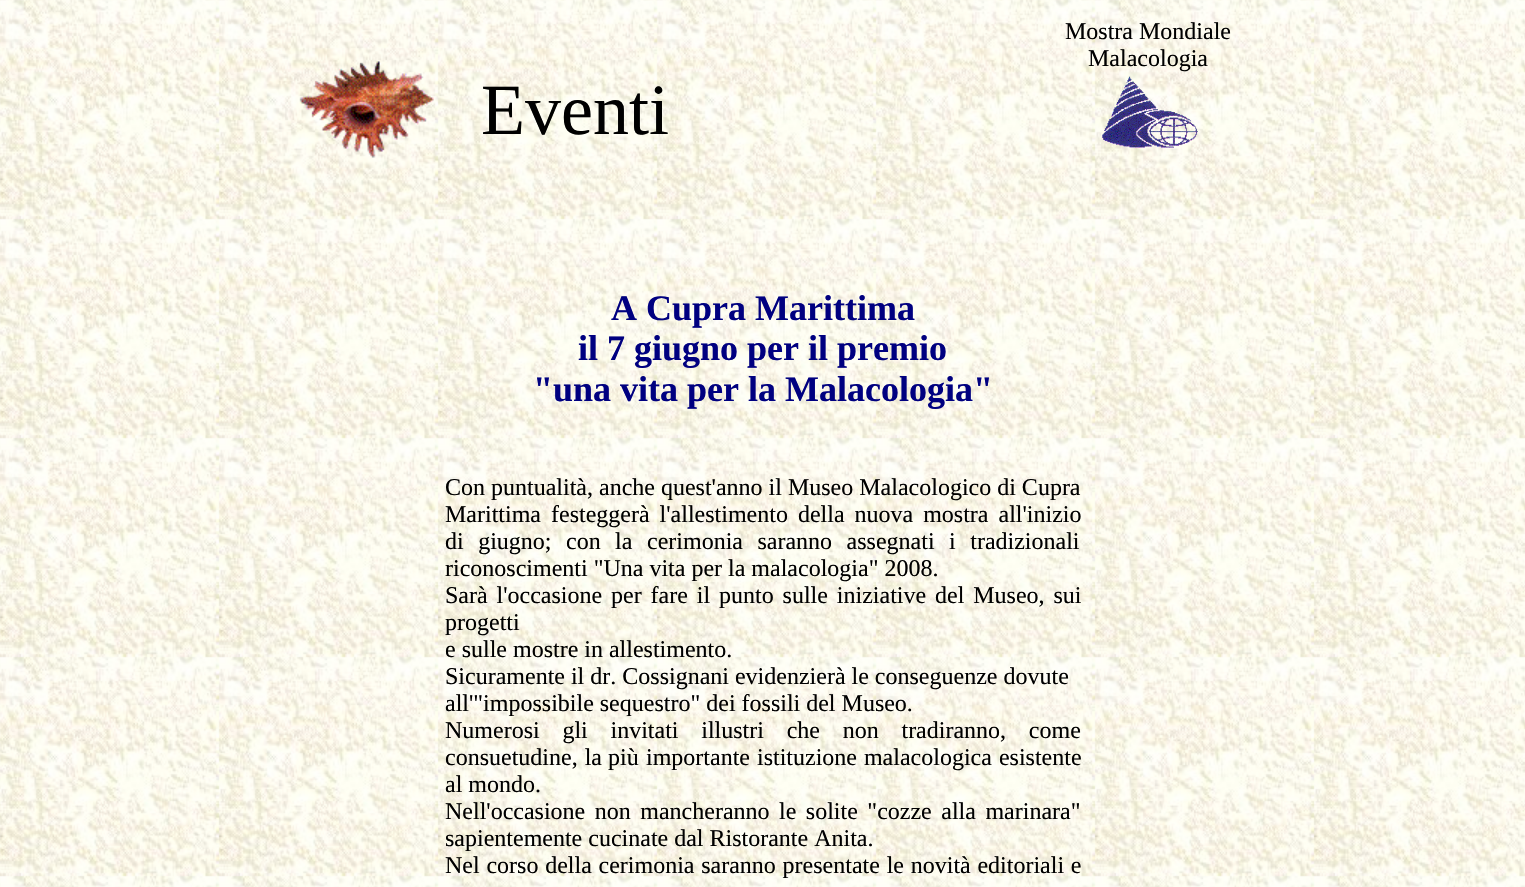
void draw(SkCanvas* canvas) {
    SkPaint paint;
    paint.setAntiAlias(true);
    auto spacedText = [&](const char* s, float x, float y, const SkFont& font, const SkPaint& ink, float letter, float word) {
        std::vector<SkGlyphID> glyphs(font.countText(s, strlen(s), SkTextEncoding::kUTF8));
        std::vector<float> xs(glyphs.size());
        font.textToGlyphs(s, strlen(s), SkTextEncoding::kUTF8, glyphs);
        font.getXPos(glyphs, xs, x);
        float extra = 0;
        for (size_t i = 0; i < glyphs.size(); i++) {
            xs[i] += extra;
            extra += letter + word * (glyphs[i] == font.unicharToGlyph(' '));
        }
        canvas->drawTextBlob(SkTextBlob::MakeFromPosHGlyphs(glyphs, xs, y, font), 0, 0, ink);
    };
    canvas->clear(0xFFFFFFFF);
    canvas->drawImageRect(SkImages::DeferredFromEncodedData(SkData::MakeFromFileName("img1.png")), SkRect::MakeXYWH(0, 0, 1525, 887), SkSamplingOptions());
    SkFont font1(fontMgr->matchFamilyStyle("Liberation Serif", SkFontStyle::Normal()), 24);
    font1.setSubpixel(true);
    paint.setColor(0xFF000000);
    canvas->drawString("Mostra Mondiale", 1065, 39, font1, paint);
    canvas->drawString("Malacologia", 1088, 66, font1, paint);
    canvas->drawImageRect(SkImages::DeferredFromEncodedData(SkData::MakeFromFileName("img2.png")), SkRect::MakeXYWH(1102, 73, 96, 75), SkSamplingOptions());
    canvas->drawImageRect(SkImages::DeferredFromEncodedData(SkData::MakeFromFileName("img3.png")), SkRect::MakeXYWH(299, 61, 135, 97), SkSamplingOptions());
    SkFont font2(fontMgr->matchFamilyStyle("Liberation Serif", SkFontStyle::Normal()), 72);
    font2.setSubpixel(true);
    canvas->drawString("Eventi", 481, 134, font2, paint);
    SkFont font3(fontMgr->matchFamilyStyle("Liberation Serif", SkFontStyle::Bold()), 36);
    font3.setSubpixel(true);
    paint.setColor(0xFF000080);
    canvas->drawString("A Cupra Marittima", 611, 320, font3, paint);
    canvas->drawString("il 7 giugno per il premio", 578, 360, font3, paint);
    canvas->drawString("\"una vita per la Malacologia\"", 533, 401, font3, paint);
    paint.setColor(0xFF000000);
    canvas->drawString("Con puntualità, anche quest'anno il Museo Malacologico di Cupra", 445, 495, font1, paint);
    canvas->drawString("Marittima", 445, 522, font1, paint);
    spacedText("festeggerà l'allestimento della nuova mostra all'inizio", 551, 522, font1, paint, 0, 4);
    spacedText("di giugno; con", 445, 549, font1, paint, 0, 8.5f);
    canvas->drawString("la", 615, 549, font1, paint);
    spacedText("cerimonia saranno assegnati i tradizionali", 647, 549, font1, paint, 0, 8.5f);
    canvas->drawString("riconoscimenti \"Una vita per la malacologia\" 2008.", 445, 576, font1, paint);
    spacedText("Sarà l'occasione per fare il punto sulle iniziative del Museo, sui", 445, 603, font1, paint, 0, 2.9f);
    canvas->drawString("progetti", 445, 630, font1, paint);
    canvas->drawString("e sulle mostre in allestimento.", 445, 657, font1, paint);
    canvas->drawString("Sicuramente il dr. Cossignani evidenzierà le conseguenze dovute", 445, 684, font1, paint);
    canvas->drawString("all'\"impossibile sequestro\" dei fossili del Museo.", 445, 711, font1, paint);
    spacedText("Numerosi gli invitati illustri che non tradiranno, come", 445, 738, font1, paint, 0, 16.75f);
    spacedText("consuetudine, la", 445, 765, font1, paint, 0, 1);
    canvas->drawString("più", 608, 765, font1, paint);
    spacedText("importante istituzione malacologica esistente", 646, 765, font1, paint, 0, 1);
    canvas->drawString("al mondo.", 445, 792, font1, paint);
    spacedText("Nell'occasione non mancheranno le solite \"cozze alla marinara\"", 445, 819, font1, paint, 0, 3.5f);
    canvas->drawString("sapientemente cucinate dal Ristorante Anita.", 445, 846, font1, paint);
    spacedText("Nel corso della cerimonia saranno presentate le novità editoriali e", 445, 873, font1, paint, 0, 0.75f);
}
